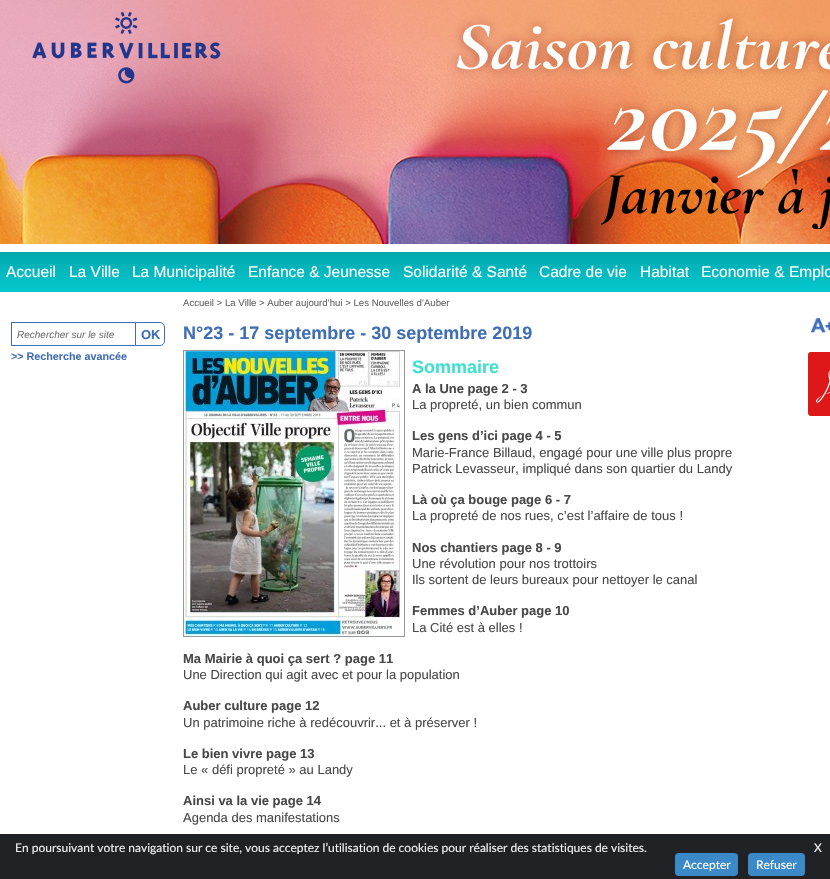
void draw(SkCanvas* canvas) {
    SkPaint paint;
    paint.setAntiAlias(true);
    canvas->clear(0xFFFFFFFF);
    canvas->drawImageRect(SkImages::DeferredFromEncodedData(SkData::MakeFromFileName("img1.png")), SkRect::MakeXYWH(0, 0, 830, 244), SkSamplingOptions());
    {
        const SkColor colors[] = {0xFF03A8AE, 0xFF05C8CF};
        const float stops[] = {0, 1};
        const SkPoint ends[] = {{490, 252}, {490, 292}};
        paint.setShader(SkGradientShader::MakeLinear(ends, colors, stops, 2, SkTileMode::kClamp));
        paint.setAlpha(255);
    }
    canvas->drawRect(SkRect::MakeXYWH(0, 252, 830, 40), paint);
    SkFont font1(fontMgr->matchFamilyStyle("Liberation Sans", SkFontStyle::Normal()), 15.5f);
    font1.setSubpixel(true);
    paint.setShader(nullptr);
    paint.setColor(0xFFFFFFFF);
    canvas->drawString("Accueil", 6, 277, font1, paint);
    canvas->drawString("La Ville", 69, 277, font1, paint);
    canvas->drawString("La Municipalité", 132, 277, font1, paint);
    canvas->drawString("Enfance & Jeunesse", 248, 277, font1, paint);
    canvas->drawString("Solidarité & Santé", 403, 277, font1, paint);
    canvas->drawString("Cadre de vie", 539, 277, font1, paint);
    canvas->drawString("Habitat", 640, 277, font1, paint);
    canvas->drawString("Economie & Emplo", 701, 277, font1, paint);
    paint.setStyle(SkPaint::kStroke_Style);
    paint.setStrokeWidth(1);
    paint.setColor(0xFF3F6EB4);
    canvas->drawRect(SkRect::MakeXYWH(11.5f, 322.5f, 126, 23), paint);
    SkFont font2(fontMgr->matchFamilyStyle("Liberation Sans", SkFontStyle::Italic()), 10);
    font2.setSubpixel(true);
    paint.setStyle(SkPaint::kFill_Style);
    paint.setColor(0xFF757575);
    canvas->drawString("Rechercher sur le site", 17, 338, font2, paint);
    paint.setColor(0xFFFFFFFF);
    canvas->drawPath(SkPathBuilder().moveTo(135.5f, 322.5f).lineTo(160, 322.5f).cubicTo(162.5f, 322.5f, 164.5f, 324.5f, 164.5f, 327).lineTo(164.5f, 341).cubicTo(164.5f, 343.5f, 162.5f, 345.5f, 160, 345.5f).lineTo(135.5f, 345.5f).close().detach(), paint);
    paint.setStyle(SkPaint::kStroke_Style);
    paint.setColor(0xFF3F6EB4);
    canvas->drawPath(SkPathBuilder().moveTo(135.5f, 322.5f).lineTo(160, 322.5f).cubicTo(162.5f, 322.5f, 164.5f, 324.5f, 164.5f, 327).lineTo(164.5f, 341).cubicTo(164.5f, 343.5f, 162.5f, 345.5f, 160, 345.5f).lineTo(135.5f, 345.5f).close().detach(), paint);
    SkFont font3(fontMgr->matchFamilyStyle("Liberation Sans", SkFontStyle::Bold()), 13);
    font3.setSubpixel(true);
    paint.setStyle(SkPaint::kFill_Style);
    canvas->drawString("OK", 141, 339, font3, paint);
    SkFont font4(fontMgr->matchFamilyStyle("Liberation Sans", SkFontStyle::Bold()), 10.75f);
    font4.setSubpixel(true);
    canvas->drawString(">> Recherche avancée", 11, 360, font4, paint);
    SkFont font5(fontMgr->matchFamilyStyle("Liberation Sans", SkFontStyle::Normal()), 9.6f);
    font5.setSubpixel(true);
    paint.setColor(0xFF656565);
    canvas->drawString("Accueil > La Ville > Auber aujourd’hui > Les Nouvelles d’Auber", 183, 306, font5, paint);
    SkFont font6(fontMgr->matchFamilyStyle("Liberation Sans", SkFontStyle::Bold()), 18);
    font6.setSubpixel(true);
    paint.setColor(0xFF3F6EB4);
    canvas->drawString("N°23 - 17 septembre - 30 septembre 2019", 183, 339, font6, paint);
    paint.setStyle(SkPaint::kStroke_Style);
    paint.setColor(0xFF989898);
    canvas->drawRect(SkRect::MakeXYWH(183.5f, 350.5f, 221, 286), paint);
    canvas->drawImageRect(SkImages::DeferredFromEncodedData(SkData::MakeFromFileName("img2.png")), SkRect::MakeXYWH(184, 351, 217, 285), SkSamplingOptions());
    paint.setStyle(SkPaint::kFill_Style);
    paint.setColor(0xFF40E0D0);
    canvas->drawString("Sommaire", 412, 373, font6, paint);
    paint.setColor(0xFF484848);
    canvas->drawString("A la Une page 2 - 3", 412, 393, font3, paint);
    SkFont font7(fontMgr->matchFamilyStyle("Liberation Sans", SkFontStyle::Normal()), 13);
    font7.setSubpixel(true);
    canvas->drawString("La propreté, un bien commun", 412, 409, font7, paint);
    canvas->drawString("Les gens d’ici page 4 - 5", 412, 440, font3, paint);
    canvas->drawString("Marie-France Billaud, engagé pour une ville plus propre", 412, 457, font7, paint);
    canvas->drawString("Patrick Levasseur, impliqué dans son quartier du Landy", 412, 473, font7, paint);
    canvas->drawString("Là où ça bouge page 6 - 7", 412, 504, font3, paint);
    canvas->drawString("La propreté de nos rues, c’est l’affaire de tous !", 412, 520, font7, paint);
    canvas->drawString("Nos chantiers page 8 - 9", 412, 552, font3, paint);
    canvas->drawString("Une révolution pour nos trottoirs", 412, 568, font7, paint);
    canvas->drawString("Ils sortent de leurs bureaux pour nettoyer le canal", 412, 584, font7, paint);
    canvas->drawString("Femmes d’Auber page 10", 412, 615, font3, paint);
    canvas->drawString("La Cité est à elles !", 412, 632, font7, paint);
    canvas->drawString("Ma Mairie à quoi ça sert ? page 11", 183, 663, font3, paint);
    canvas->drawString("Une Direction qui agit avec et pour la population", 183, 679, font7, paint);
    canvas->drawString("Auber culture page 12", 183, 710, font3, paint);
    canvas->drawString("Un patrimoine riche à redécouvrir... et à préserver !", 183, 727, font7, paint);
    canvas->drawString("Le bien vivre page 13", 183, 758, font3, paint);
    canvas->drawString("Le « défi propreté » au Landy", 183, 774, font7, paint);
    canvas->drawString("Ainsi va la vie page 14", 183, 805, font3, paint);
    canvas->drawString("Agenda des manifestations", 183, 822, font7, paint);
    canvas->drawImageRect(SkImages::DeferredFromEncodedData(SkData::MakeFromFileName("img3.png")), SkRect::MakeXYWH(811, 317, 19, 16), SkSamplingOptions());
    canvas->drawImageRect(SkImages::DeferredFromEncodedData(SkData::MakeFromFileName("img4.png")), SkRect::MakeXYWH(808, 352, 22, 64), SkSamplingOptions());
    paint.setColor(0xFF202226);
    canvas->drawRect(SkRect::MakeXYWH(0, 834, 830, 45), paint);
    SkFont font8(fontMgr->matchFamilyStyle("Lato", SkFontStyle::Normal()), 12);
    font8.setSubpixel(true);
    paint.setColor(0xFFF1F1F3);
    canvas->drawString("En poursuivant votre navigation sur ce site, vous acceptez l’utilisation de cookies pour réaliser des statistiques de visites.", 15, 852, font8, paint);
    canvas->drawString("X", 814, 852, font8, paint);
    paint.setColor(0xFF3B89C7);
    canvas->drawRoundRect(SkRect::MakeXYWH(675, 853, 63, 23), 4, 4, paint);
    paint.setColor(0xFFFFFFFF);
    canvas->drawString("Accepter", 683, 869, font8, paint);
    paint.setColor(0xFF3B89C7);
    canvas->drawRoundRect(SkRect::MakeXYWH(748, 853, 57, 23), 4, 4, paint);
    paint.setColor(0xFFFFFFFF);
    canvas->drawString("Refuser", 756, 869, font8, paint);
}
